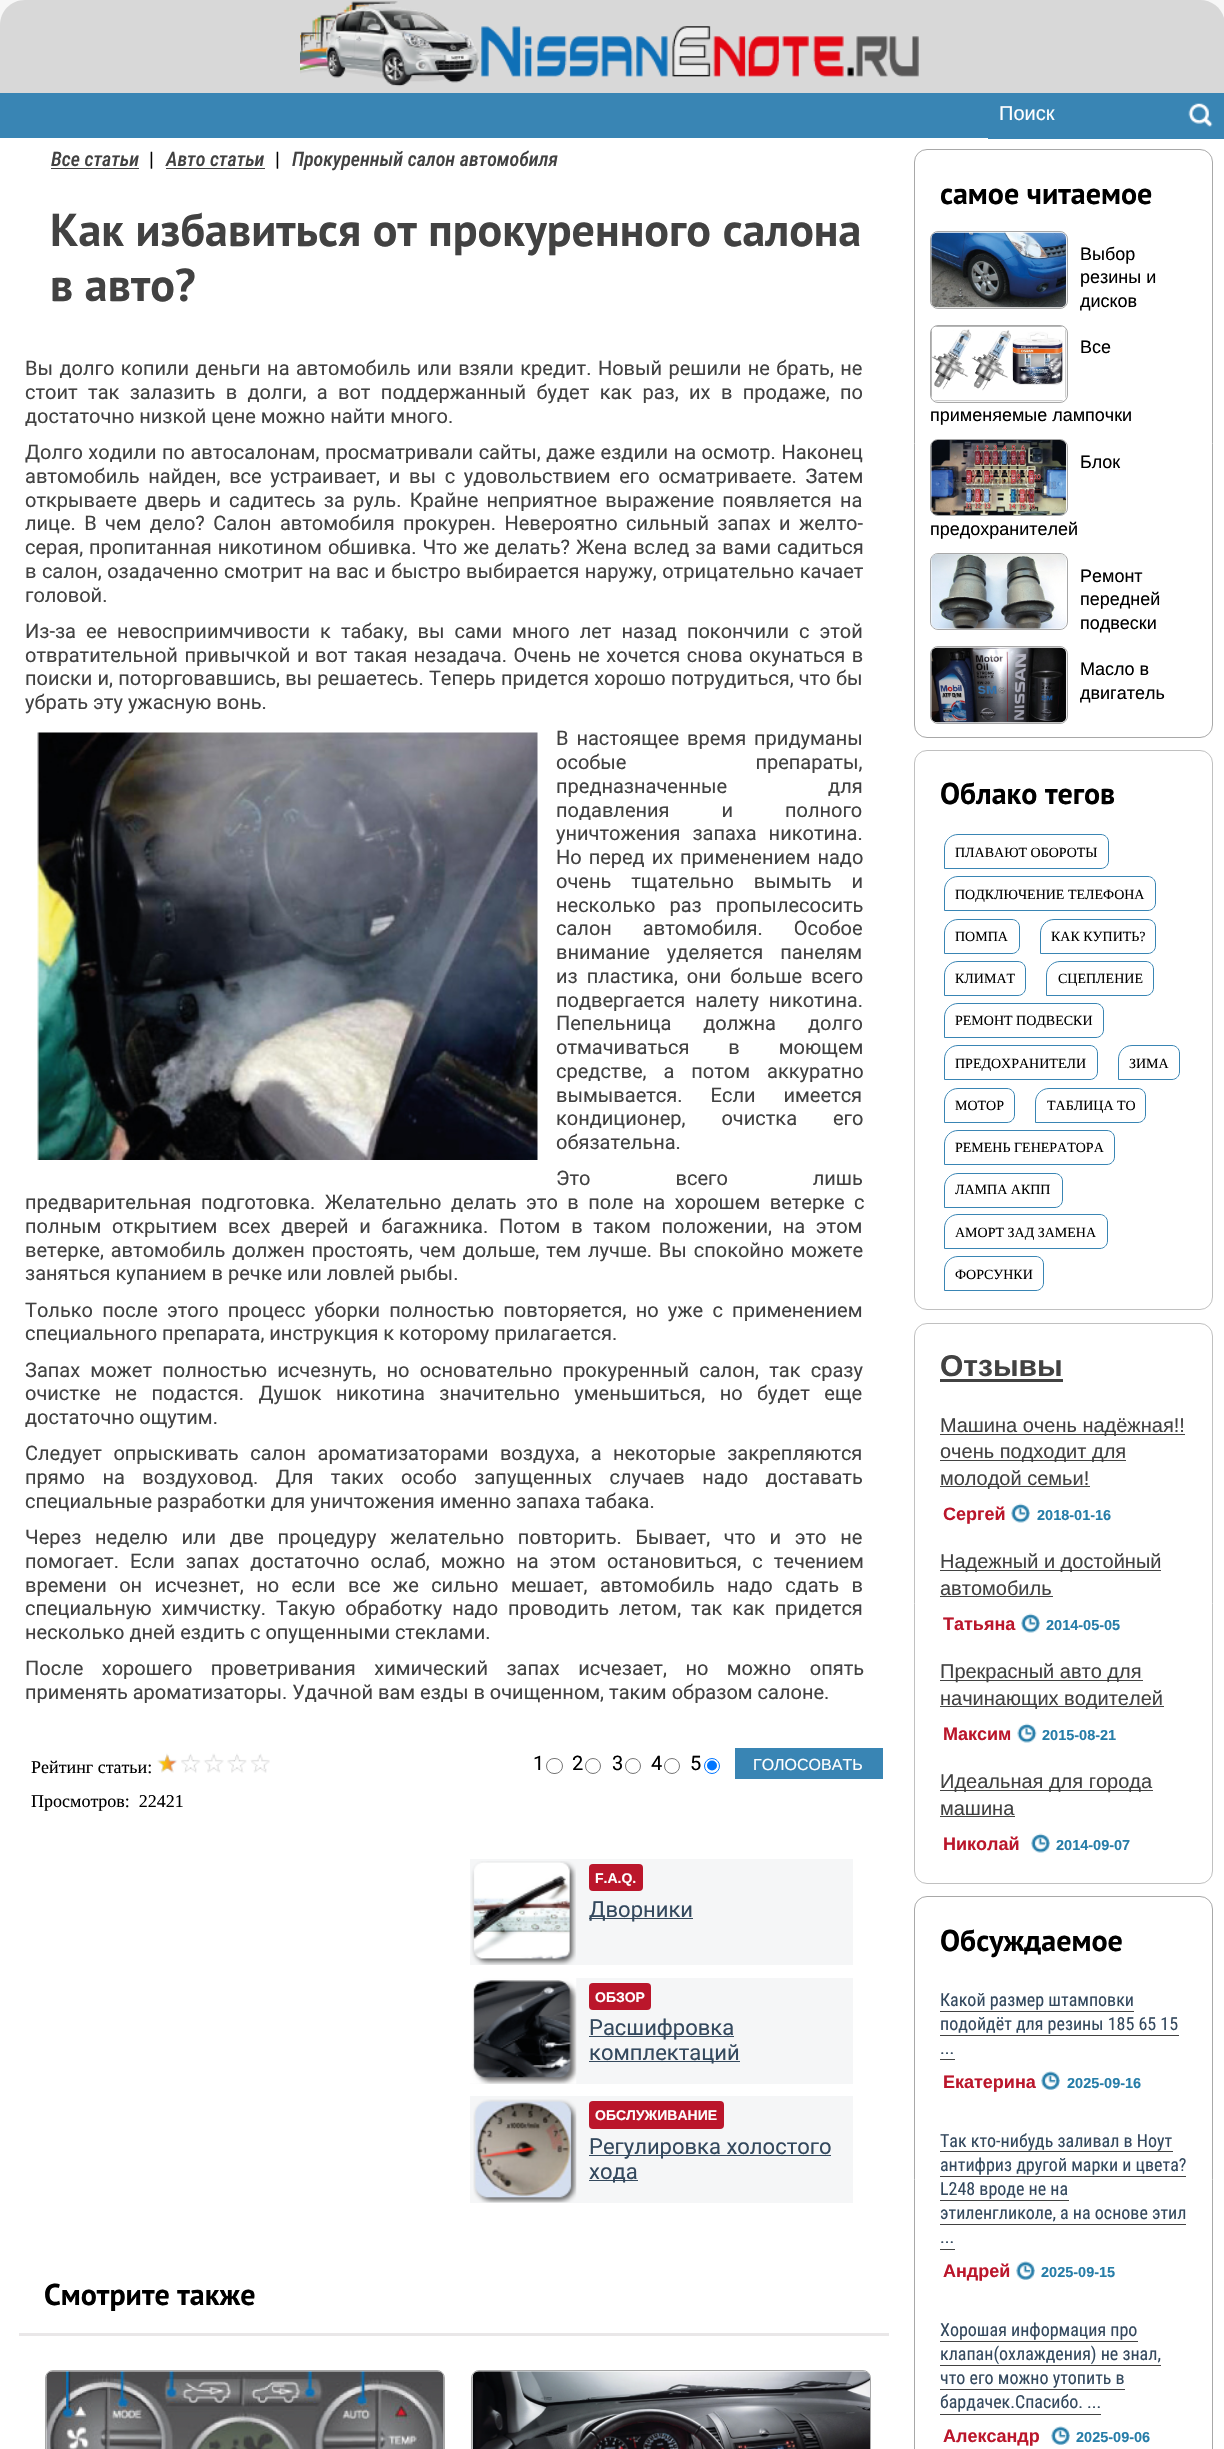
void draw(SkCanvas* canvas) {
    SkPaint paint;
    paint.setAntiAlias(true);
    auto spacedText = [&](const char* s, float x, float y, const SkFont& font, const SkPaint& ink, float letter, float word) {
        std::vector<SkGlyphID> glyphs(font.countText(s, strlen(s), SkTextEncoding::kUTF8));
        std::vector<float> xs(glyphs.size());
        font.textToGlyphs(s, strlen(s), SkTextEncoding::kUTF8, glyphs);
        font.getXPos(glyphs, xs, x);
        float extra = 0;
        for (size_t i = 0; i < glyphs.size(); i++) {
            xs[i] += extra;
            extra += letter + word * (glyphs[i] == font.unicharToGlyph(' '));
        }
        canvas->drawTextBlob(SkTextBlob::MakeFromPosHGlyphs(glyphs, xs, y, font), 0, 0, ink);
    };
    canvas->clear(0xFFF7F7F7);
    paint.setColor(0xFFD8D8D8);
    canvas->drawPath(SkPathBuilder().moveTo(25, 0).lineTo(1200, 0).cubicTo(1214, 0, 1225, 11, 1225, 25).lineTo(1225, 93).lineTo(0, 93).lineTo(0, 25).cubicTo(0, 11, 11, 0, 25, 0).close().detach(), paint);
    canvas->drawImageRect(SkImages::DeferredFromEncodedData(SkData::MakeFromFileName("img1.png")), SkRect::MakeXYWH(300, 1, 619, 86), SkSamplingOptions());
    paint.setColor(0xFF3985B4);
    canvas->drawRect(SkRect::MakeXYWH(0, 93, 988, 45), paint);
    paint.setColor(0xFFFFFFFF);
    canvas->drawRect(SkRect::MakeXYWH(0, 138, 1224, 2311), paint);
    paint.setColor(0xFF3985B4);
    canvas->drawRect(SkRect::MakeXYWH(988, 93, 236, 46), paint);
    SkFont font1(fontMgr->matchFamilyStyle("Liberation Sans", SkFontStyle::Normal()), 20);
    font1.setSubpixel(true);
    paint.setColor(0xFFFFFFFF);
    canvas->drawString("Поиск", 999, 120, font1, paint);
    canvas->drawImageRect(SkImages::DeferredFromEncodedData(SkData::MakeFromFileName("img2.png")), SkRect::MakeXYWH(1188, 103, 25, 24), SkSamplingOptions());
    SkFont font2(fontMgr->matchFamilyStyle("Roboto Condensed", SkFontStyle(500, SkFontStyle::kNormal_Width, SkFontStyle::kItalic_Slant)), 20);
    font2.setSubpixel(true);
    paint.setColor(0xFF424242);
    canvas->drawString("Все статьи", 51, 166, font2, paint);
    canvas->drawRect(SkRect::MakeXYWH(51, 168, 88, 1), paint);
    SkFont font3(fontMgr->matchFamilyStyle("Roboto", SkFontStyle::Normal()), 20);
    font3.setSubpixel(true);
    paint.setColor(0xFF000000);
    canvas->drawString("|", 149, 166, font3, paint);
    paint.setColor(0xFF424242);
    canvas->drawString("Авто статьи", 166, 166, font2, paint);
    canvas->drawRect(SkRect::MakeXYWH(166, 168, 99, 1), paint);
    paint.setColor(0xFF000000);
    canvas->drawString("|", 275, 166, font3, paint);
    paint.setColor(0xFF424242);
    canvas->drawString("Прокуренный салон автомобиля", 292, 166, font2, paint);
    SkFont font4(fontMgr->matchFamilyStyle("PT Sans", SkFontStyle::Bold()), 46);
    font4.setSubpixel(true);
    canvas->drawString("Как избавиться от прокуренного салона", 50, 246, font4, paint);
    canvas->drawString("в авто?", 50, 301, font4, paint);
    spacedText("Вы долго копили деньги на автомобиль или взяли кредит. Новый решили не брать, не", 25, 375, font3, paint, 0, 1.5f);
    spacedText("стоит так залазить в долги, а вот поддержанный будет как раз, их в продаже, по", 25, 399, font3, paint, 0, 5.4f);
    canvas->drawString("достаточно низкой цене можно найти много.", 25, 423, font3, paint);
    spacedText("Долго ходили по автосалонам, просматривали сайты, даже ездили на осмотр. Наконец", 25, 459, font3, paint, 0, 0.6f);
    spacedText("автомобиль найден, все устраивает, и вы с удовольствием его осматриваете. Затем", 25, 483, font3, paint, 0, 3.75f);
    spacedText("открываете дверь и садитесь за руль. Крайне неприятное выражение появляется на", 25, 507, font3, paint, 0, 3.25f);
    spacedText("лице. В чем дело? Салон автомобиля прокурен. Невероятно сильный запах и желто-", 25, 530, font3, paint, 0, 3.4f);
    spacedText("серая, пропитанная никотином обшивка. Что же делать? Жена вслед за вами садиться", 25, 554, font3, paint, 0, 1);
    spacedText("в салон, озадаченно смотрит на вас и быстро выбирается наружу, отрицательно качает", 25, 578, font3, paint, 0, 0.5f);
    canvas->drawString("головой.", 25, 602, font3, paint);
    spacedText("Из-за ее невосприимчивости к табаку, вы сами много лет назад покончили с этой", 25, 638, font3, paint, 0, 5);
    spacedText("отвратительной привычкой и вот такая незадача. Очень не хочется снова окунаться в", 25, 662, font3, paint, 0, 1.6f);
    spacedText("поиски и, поторговавшись, вы решаетесь. Теперь придется хорошо потрудиться, что бы", 25, 685, font3, paint, 0, 0.25f);
    canvas->drawString("убрать эту ужасную вонь.", 25, 709, font3, paint);
    canvas->drawImageRect(SkImages::DeferredFromEncodedData(SkData::MakeFromFileName("img3.png")), SkRect::MakeXYWH(37, 732, 501, 428), SkSamplingOptions());
    spacedText("В настоящее время придуманы", 556, 745, font3, paint, 0, 3);
    spacedText("особые препараты,", 556, 769, font3, paint, 0, 124);
    spacedText("предназначенные для", 556, 793, font3, paint, 0, 96);
    spacedText("подавления и полного", 556, 817, font3, paint, 0, 47);
    spacedText("уничтожения запаха никотина.", 556, 840, font3, paint, 0, 7);
    spacedText("Но перед их применением надо", 556, 864, font3, paint, 0, 2);
    spacedText("очень тщательно вымыть и", 556, 888, font3, paint, 0, 15);
    spacedText("несколько раз пропылесосить", 556, 912, font3, paint, 0, 9);
    spacedText("салон автомобиля. Особое", 556, 935, font3, paint, 0, 26);
    spacedText("внимание уделяется панелям", 556, 959, font3, paint, 0, 12);
    spacedText("из пластика, они больше всего", 556, 983, font3, paint, 0, 4);
    spacedText("подвергается налету никотина.", 556, 1007, font3, paint, 0, 5);
    spacedText("Пепельница должна долго", 556, 1030, font3, paint, 0, 27);
    spacedText("отмачиваться в моющем", 556, 1054, font3, paint, 0, 34);
    spacedText("средстве, а потом аккуратно", 556, 1078, font3, paint, 0, 12);
    spacedText("вымывается. Если имеется", 556, 1102, font3, paint, 0, 23);
    spacedText("кондиционер, очистка его", 556, 1125, font3, paint, 0, 31);
    canvas->drawString("обязательна.", 556, 1149, font3, paint);
    spacedText("Это всего лишь", 556, 1185, font3, paint, 0, 80);
    spacedText("предварительная подготовка. Желательно делать это в поле на хорошем ветерке с", 25, 1209, font3, paint, 0, 4.5f);
    spacedText("полным открытием всех дверей и багажника. Потом в таком положении, на этом", 25, 1233, font3, paint, 0, 5.75f);
    spacedText("ветерке, автомобиль должен простоять, чем дольше, тем лучше. Вы спокойно можете", 25, 1257, font3, paint, 0, 1.9f);
    canvas->drawString("заняться купанием в речке или ловлей рыбы.", 25, 1280, font3, paint);
    spacedText("Только после этого процесс уборки полностью повторяется, но уже с применением", 25, 1317, font3, paint, 0, 4.25f);
    canvas->drawString("специального препарата, инструкция к которому прилагается.", 25, 1340, font3, paint);
    spacedText("Запах может полностью исчезнуть, но основательно прокуренный салон, так сразу", 25, 1377, font3, paint, 0, 5.25f);
    spacedText("очистке не подастся. Душок никотина значительно уменьшиться, но будет еще", 25, 1400, font3, paint, 0, 9.5f);
    canvas->drawString("достаточно ощутим.", 25, 1424, font3, paint);
    spacedText("Следует опрыскивать салон ароматизаторами воздуха, а некоторые закрепляются", 25, 1460, font3, paint, 0, 6.5f);
    spacedText("прямо на воздуховод. Для таких особо запущенных случаев надо доставать", 25, 1484, font3, paint, 0, 12.5f);
    canvas->drawString("специальные разработки для уничтожения именно запаха табака.", 25, 1508, font3, paint);
    spacedText("Через неделю или две процедуру желательно повторить. Бывает, что и это не", 25, 1544, font3, paint, 0, 8.75f);
    spacedText("помогает. Если запах достаточно ослаб, можно на этом остановиться, с течением", 25, 1568, font3, paint, 0, 6);
    spacedText("времени он исчезнет, но если все же сильно мешает, автомобиль надо сдать в", 25, 1592, font3, paint, 0, 7.4f);
    spacedText("специальную химчистку. Такую обработку надо проводить летом, так как придется", 25, 1615, font3, paint, 0, 5);
    canvas->drawString("несколько дней ездить с опущенными стеклами.", 25, 1639, font3, paint);
    spacedText("После хорошего проветривания химический запах исчезает, но можно опять", 25, 1675, font3, paint, 0, 13.5f);
    canvas->drawString("применять ароматизаторы. Удачной вам езды в очищенном, таким образом салоне.", 25, 1699, font3, paint);
    SkFont font5(fontMgr->matchFamilyStyle("Liberation Serif", SkFontStyle::Normal()), 18);
    font5.setSubpixel(true);
    paint.setColor(0xFF000000);
    canvas->drawString("Рейтинг статьи:", 31, 1773, font5, paint);
    canvas->drawImageRect(SkImages::DeferredFromEncodedData(SkData::MakeFromFileName("img4.png")), SkRect::MakeXYWH(157, 1753, 113, 20), SkSamplingOptions());
    canvas->drawString("Просмотров:  22421", 31, 1807, font5, paint);
    canvas->drawString("1", 533, 1770, font3, paint);
    paint.setStyle(SkPaint::kStroke_Style);
    paint.setStrokeWidth(1);
    paint.setColor(0xFF767676);
    canvas->drawRoundRect(SkRect::MakeXYWH(546.5f, 1758.5f, 16, 15), 7.5f, 7.5f, paint);
    paint.setStyle(SkPaint::kFill_Style);
    paint.setColor(0xFF000000);
    canvas->drawString("2", 572, 1770, font3, paint);
    paint.setStyle(SkPaint::kStroke_Style);
    paint.setColor(0xFF767676);
    canvas->drawCircle(593, 1766, 7.5f, paint);
    paint.setStyle(SkPaint::kFill_Style);
    paint.setColor(0xFF000000);
    canvas->drawString("3", 612, 1770, font3, paint);
    paint.setStyle(SkPaint::kStroke_Style);
    paint.setColor(0xFF767676);
    canvas->drawCircle(633, 1766, 7.5f, paint);
    paint.setStyle(SkPaint::kFill_Style);
    paint.setColor(0xFF000000);
    canvas->drawString("4", 651, 1770, font3, paint);
    paint.setStyle(SkPaint::kStroke_Style);
    paint.setColor(0xFF767676);
    canvas->drawCircle(672, 1766, 7.5f, paint);
    paint.setStyle(SkPaint::kFill_Style);
    paint.setColor(0xFF000000);
    canvas->drawString("5", 690, 1770, font3, paint);
    paint.setStyle(SkPaint::kStroke_Style);
    paint.setColor(0xFF0075FF);
    canvas->drawCircle(712, 1766, 7.5f, paint);
    paint.setStyle(SkPaint::kFill_Style);
    canvas->drawCircle(712, 1765.5f, 5, paint);
    paint.setColor(0xFF3985B4);
    canvas->drawRect(SkRect::MakeXYWH(735, 1748, 148, 31), paint);
    SkFont font6(fontMgr->matchFamilyStyle("Liberation Sans", SkFontStyle::Normal()), 16);
    font6.setSubpixel(true);
    paint.setColor(0xFFFFFFFF);
    canvas->drawString("ГОЛОСОВАТЬ", 753, 1770, font6, paint);
    paint.setColor(0xFFF5F6F7);
    canvas->drawRect(SkRect::MakeXYWH(470, 1859, 383, 106), paint);
    canvas->drawImageRect(SkImages::DeferredFromEncodedData(SkData::MakeFromFileName("img5.png")), SkRect::MakeXYWH(471, 1861, 105, 104), SkSamplingOptions());
    paint.setColor(0xFFBB162B);
    canvas->drawRoundRect(SkRect::MakeXYWH(589, 1864, 54, 27), 4, 4, paint);
    SkFont font7(fontMgr->matchFamilyStyle("Liberation Sans", SkFontStyle::Bold()), 14);
    font7.setSubpixel(true);
    paint.setColor(0xFFFFFFFF);
    canvas->drawString("F.A.Q.", 595, 1883, font7, paint);
    paint.setColor(0xFF34495E);
    canvas->drawRect(SkRect::MakeXYWH(589, 1918, 104, 1), paint);
    SkFont font8(fontMgr->matchFamilyStyle("Roboto", SkFontStyle::Normal()), 22);
    font8.setSubpixel(true);
    canvas->drawString("Дворники", 589, 1917, font8, paint);
    paint.setColor(0xFFF5F6F7);
    canvas->drawRect(SkRect::MakeXYWH(470, 1978, 383, 106), paint);
    canvas->drawImageRect(SkImages::DeferredFromEncodedData(SkData::MakeFromFileName("img6.png")), SkRect::MakeXYWH(470, 1978, 107, 106), SkSamplingOptions());
    paint.setColor(0xFFBB162B);
    canvas->drawRoundRect(SkRect::MakeXYWH(589, 1983, 62, 27), 4, 4, paint);
    paint.setColor(0xFFFFFFFF);
    canvas->drawString("ОБЗОР", 595, 2002, font7, paint);
    paint.setColor(0xFF34495E);
    canvas->drawRect(SkRect::MakeXYWH(589, 2036, 145, 1), paint);
    canvas->drawString("Расшифровка", 589, 2035, font8, paint);
    canvas->drawRect(SkRect::MakeXYWH(589, 2061, 151, 1), paint);
    canvas->drawString("комплектаций", 589, 2060, font8, paint);
    paint.setColor(0xFFF5F6F7);
    canvas->drawRect(SkRect::MakeXYWH(470, 2096, 383, 107), paint);
    canvas->drawImageRect(SkImages::DeferredFromEncodedData(SkData::MakeFromFileName("img7.png")), SkRect::MakeXYWH(473, 2099, 104, 104), SkSamplingOptions());
    paint.setColor(0xFFBB162B);
    canvas->drawRoundRect(SkRect::MakeXYWH(589, 2101, 135, 28), 4, 4, paint);
    paint.setColor(0xFFFFFFFF);
    canvas->drawString("ОБСЛУЖИВАНИЕ", 595, 2120, font7, paint);
    paint.setColor(0xFF34495E);
    canvas->drawRect(SkRect::MakeXYWH(589, 2155, 242, 1), paint);
    canvas->drawString("Регулировка холостого", 589, 2154, font8, paint);
    canvas->drawRect(SkRect::MakeXYWH(589, 2180, 49, 1), paint);
    canvas->drawString("хода", 589, 2179, font8, paint);
    SkFont font9(fontMgr->matchFamilyStyle("PT Sans", SkFontStyle::Bold()), 30);
    font9.setSubpixel(true);
    paint.setColor(0xFF000000);
    canvas->drawString("Смотрите также", 44, 2305, font9, paint);
    paint.setColor(0xFFE9E7E8);
    canvas->drawRect(SkRect::MakeXYWH(19, 2333, 870, 3), paint);
    paint.setStyle(SkPaint::kStroke_Style);
    paint.setColor(0xFFA8A8A8);
    canvas->drawRoundRect(SkRect::MakeXYWH(45.5f, 2370.5f, 399, 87), 7.5f, 7.5f, paint);
    canvas->drawImageRect(SkImages::DeferredFromEncodedData(SkData::MakeFromFileName("img8.png")), SkRect::MakeXYWH(46, 2371, 398, 78), SkSamplingOptions());
    canvas->drawRoundRect(SkRect::MakeXYWH(471.5f, 2370.5f, 399, 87), 7.5f, 7.5f, paint);
    canvas->drawImageRect(SkImages::DeferredFromEncodedData(SkData::MakeFromFileName("img9.png")), SkRect::MakeXYWH(472, 2371, 398, 78), SkSamplingOptions());
    canvas->drawRoundRect(SkRect::MakeXYWH(914.5f, 149.5f, 298, 588), 12.5f, 12.5f, paint);
    paint.setStyle(SkPaint::kFill_Style);
    paint.setColor(0xFF000000);
    canvas->drawString("самое читаемое", 940, 204, font9, paint);
    paint.setStyle(SkPaint::kStroke_Style);
    paint.setColor(0xFFA8A8A8);
    canvas->drawRoundRect(SkRect::MakeXYWH(930.5f, 231.5f, 137, 77), 7.5f, 7.5f, paint);
    canvas->drawImageRect(SkImages::DeferredFromEncodedData(SkData::MakeFromFileName("img10.png")), SkRect::MakeXYWH(931, 232, 136, 76), SkSamplingOptions());
    SkFont font10(fontMgr->matchFamilyStyle("Liberation Sans", SkFontStyle::Normal()), 18);
    font10.setSubpixel(true);
    paint.setStyle(SkPaint::kFill_Style);
    paint.setColor(0xFF000000);
    canvas->drawString("Выбор", 1080, 260, font10, paint);
    canvas->drawString("резины и", 1080, 283, font10, paint);
    canvas->drawString("дисков", 1080, 307, font10, paint);
    paint.setStyle(SkPaint::kStroke_Style);
    paint.setColor(0xFFA8A8A8);
    canvas->drawRoundRect(SkRect::MakeXYWH(930.5f, 325.5f, 137, 77), 7.5f, 7.5f, paint);
    canvas->drawImageRect(SkImages::DeferredFromEncodedData(SkData::MakeFromFileName("img11.png")), SkRect::MakeXYWH(931, 326, 136, 76), SkSamplingOptions());
    paint.setStyle(SkPaint::kFill_Style);
    paint.setColor(0xFF000000);
    canvas->drawString("Все", 1080, 353, font10, paint);
    canvas->drawString("применяемые лампочки", 930, 421, font10, paint);
    paint.setStyle(SkPaint::kStroke_Style);
    paint.setColor(0xFFA8A8A8);
    canvas->drawRoundRect(SkRect::MakeXYWH(930.5f, 439.5f, 137, 76), 7.5f, 7.5f, paint);
    canvas->drawImageRect(SkImages::DeferredFromEncodedData(SkData::MakeFromFileName("img12.png")), SkRect::MakeXYWH(931, 440, 136, 75), SkSamplingOptions());
    paint.setStyle(SkPaint::kFill_Style);
    paint.setColor(0xFF000000);
    canvas->drawString("Блок", 1080, 468, font10, paint);
    canvas->drawString("предохранителей", 930, 535, font10, paint);
    paint.setStyle(SkPaint::kStroke_Style);
    paint.setColor(0xFFA8A8A8);
    canvas->drawRoundRect(SkRect::MakeXYWH(930.5f, 553.5f, 137, 76), 7.5f, 7.5f, paint);
    canvas->drawImageRect(SkImages::DeferredFromEncodedData(SkData::MakeFromFileName("img13.png")), SkRect::MakeXYWH(931, 554, 135, 75), SkSamplingOptions());
    paint.setStyle(SkPaint::kFill_Style);
    paint.setColor(0xFF000000);
    canvas->drawString("Ремонт", 1080, 582, font10, paint);
    canvas->drawString("передней", 1080, 605, font10, paint);
    canvas->drawString("подвески", 1080, 629, font10, paint);
    paint.setStyle(SkPaint::kStroke_Style);
    paint.setColor(0xFFA8A8A8);
    canvas->drawRoundRect(SkRect::MakeXYWH(930.5f, 646.5f, 137, 77), 7.5f, 7.5f, paint);
    canvas->drawImageRect(SkImages::DeferredFromEncodedData(SkData::MakeFromFileName("img14.png")), SkRect::MakeXYWH(931, 647, 136, 76), SkSamplingOptions());
    paint.setStyle(SkPaint::kFill_Style);
    paint.setColor(0xFF000000);
    canvas->drawString("Масло в", 1080, 675, font10, paint);
    canvas->drawString("двигатель", 1080, 699, font10, paint);
    paint.setStyle(SkPaint::kStroke_Style);
    paint.setColor(0xFFC0C0C0);
    canvas->drawRoundRect(SkRect::MakeXYWH(914.5f, 750.5f, 298, 559), 12.5f, 12.5f, paint);
    paint.setStyle(SkPaint::kFill_Style);
    paint.setColor(0xFF000000);
    canvas->drawString("Облако тегов", 940, 804, font9, paint);
    paint.setStyle(SkPaint::kStroke_Style);
    paint.setColor(0xFF3985B4);
    canvas->drawPath(SkPathBuilder().moveTo(958, 834.5f).lineTo(1101, 834.5f).cubicTo(1105, 834.5f, 1108.5f, 838, 1108.5f, 842).lineTo(1108.5f, 861).cubicTo(1108.5f, 865, 1105, 868.5f, 1101, 868.5f).lineTo(944.5f, 868.5f).lineTo(944.5f, 848).cubicTo(944.5f, 840.5f, 950.5f, 834.5f, 958, 834.5f).close().detach(), paint);
    SkFont font11(fontMgr->matchFamilyStyle("Liberation Serif", SkFontStyle::Normal()), 14);
    font11.setSubpixel(true);
    paint.setStyle(SkPaint::kFill_Style);
    paint.setColor(0xFF000000);
    canvas->drawString("ПЛАВАЮТ ОБОРОТЫ", 955, 857, font11, paint);
    paint.setStyle(SkPaint::kStroke_Style);
    paint.setColor(0xFF3985B4);
    canvas->drawPath(SkPathBuilder().moveTo(958, 876.5f).lineTo(1148, 876.5f).cubicTo(1152, 876.5f, 1155.5f, 880, 1155.5f, 884).lineTo(1155.5f, 903).cubicTo(1155.5f, 907, 1152, 910.5f, 1148, 910.5f).lineTo(944.5f, 910.5f).lineTo(944.5f, 890).cubicTo(944.5f, 882.5f, 950.5f, 876.5f, 958, 876.5f).close().detach(), paint);
    paint.setStyle(SkPaint::kFill_Style);
    paint.setColor(0xFF000000);
    canvas->drawString("ПОДКЛЮЧЕНИЕ ТЕЛЕФОНА", 955, 899, font11, paint);
    paint.setStyle(SkPaint::kStroke_Style);
    paint.setColor(0xFF3985B4);
    canvas->drawPath(SkPathBuilder().moveTo(958, 919.5f).lineTo(1012, 919.5f).cubicTo(1016, 919.5f, 1019.5f, 923, 1019.5f, 927).lineTo(1019.5f, 946).cubicTo(1019.5f, 950, 1016, 953.5f, 1012, 953.5f).lineTo(944.5f, 953.5f).lineTo(944.5f, 933).cubicTo(944.5f, 925.5f, 950.5f, 919.5f, 958, 919.5f).close().detach(), paint);
    paint.setStyle(SkPaint::kFill_Style);
    paint.setColor(0xFF000000);
    canvas->drawString("ПОМПА", 955, 941, font11, paint);
    paint.setStyle(SkPaint::kStroke_Style);
    paint.setColor(0xFF3985B4);
    canvas->drawPath(SkPathBuilder().moveTo(1054, 919.5f).lineTo(1148, 919.5f).cubicTo(1152, 919.5f, 1155.5f, 923, 1155.5f, 927).lineTo(1155.5f, 946).cubicTo(1155.5f, 950, 1152, 953.5f, 1148, 953.5f).lineTo(1040.5f, 953.5f).lineTo(1040.5f, 933).cubicTo(1040.5f, 925.5f, 1046.5f, 919.5f, 1054, 919.5f).close().detach(), paint);
    paint.setStyle(SkPaint::kFill_Style);
    paint.setColor(0xFF000000);
    canvas->drawString("КАК КУПИТЬ?", 1051, 941, font11, paint);
    paint.setStyle(SkPaint::kStroke_Style);
    paint.setColor(0xFF3985B4);
    canvas->drawPath(SkPathBuilder().moveTo(958, 961.5f).lineTo(1018, 961.5f).cubicTo(1022, 961.5f, 1025.5f, 965, 1025.5f, 969).lineTo(1025.5f, 988).cubicTo(1025.5f, 992, 1022, 995.5f, 1018, 995.5f).lineTo(944.5f, 995.5f).lineTo(944.5f, 975).cubicTo(944.5f, 967.5f, 950.5f, 961.5f, 958, 961.5f).close().detach(), paint);
    paint.setStyle(SkPaint::kFill_Style);
    paint.setColor(0xFF000000);
    canvas->drawString("КЛИМАТ", 955, 983, font11, paint);
    paint.setStyle(SkPaint::kStroke_Style);
    paint.setColor(0xFF3985B4);
    canvas->drawPath(SkPathBuilder().moveTo(1060, 961.5f).lineTo(1146, 961.5f).cubicTo(1150, 961.5f, 1153.5f, 965, 1153.5f, 969).lineTo(1153.5f, 988).cubicTo(1153.5f, 992, 1150, 995.5f, 1146, 995.5f).lineTo(1046.5f, 995.5f).lineTo(1046.5f, 975).cubicTo(1046.5f, 967.5f, 1052.5f, 961.5f, 1060, 961.5f).close().detach(), paint);
    paint.setStyle(SkPaint::kFill_Style);
    paint.setColor(0xFF000000);
    canvas->drawString("СЦЕПЛЕНИЕ", 1058, 983, font11, paint);
    paint.setStyle(SkPaint::kStroke_Style);
    paint.setColor(0xFF3985B4);
    canvas->drawPath(SkPathBuilder().moveTo(958, 1003.5f).lineTo(1096, 1003.5f).cubicTo(1100, 1003.5f, 1103.5f, 1007, 1103.5f, 1011).lineTo(1103.5f, 1030).cubicTo(1103.5f, 1034, 1100, 1037.5f, 1096, 1037.5f).lineTo(944.5f, 1037.5f).lineTo(944.5f, 1017).cubicTo(944.5f, 1009.5f, 950.5f, 1003.5f, 958, 1003.5f).close().detach(), paint);
    paint.setStyle(SkPaint::kFill_Style);
    paint.setColor(0xFF000000);
    canvas->drawString("РЕМОНТ ПОДВЕСКИ", 955, 1025, font11, paint);
    paint.setStyle(SkPaint::kStroke_Style);
    paint.setColor(0xFF3985B4);
    canvas->drawPath(SkPathBuilder().moveTo(958, 1045.5f).lineTo(1090, 1045.5f).cubicTo(1094, 1045.5f, 1097.5f, 1049, 1097.5f, 1053).lineTo(1097.5f, 1072).cubicTo(1097.5f, 1076, 1094, 1079.5f, 1090, 1079.5f).lineTo(944.5f, 1079.5f).lineTo(944.5f, 1059).cubicTo(944.5f, 1051.5f, 950.5f, 1045.5f, 958, 1045.5f).close().detach(), paint);
    paint.setStyle(SkPaint::kFill_Style);
    paint.setColor(0xFF000000);
    canvas->drawString("ПРЕДОХРАНИТЕЛИ", 955, 1068, font11, paint);
    paint.setStyle(SkPaint::kStroke_Style);
    paint.setColor(0xFF3985B4);
    canvas->drawPath(SkPathBuilder().moveTo(1132, 1045.5f).lineTo(1172, 1045.5f).cubicTo(1176, 1045.5f, 1179.5f, 1049, 1179.5f, 1053).lineTo(1179.5f, 1072).cubicTo(1179.5f, 1076, 1176, 1079.5f, 1172, 1079.5f).lineTo(1118.5f, 1079.5f).lineTo(1118.5f, 1059).cubicTo(1118.5f, 1051.5f, 1124.5f, 1045.5f, 1132, 1045.5f).close().detach(), paint);
    paint.setStyle(SkPaint::kFill_Style);
    paint.setColor(0xFF000000);
    canvas->drawString("ЗИМА", 1129, 1068, font11, paint);
    paint.setStyle(SkPaint::kStroke_Style);
    paint.setColor(0xFF3985B4);
    canvas->drawPath(SkPathBuilder().moveTo(958, 1088.5f).lineTo(1007, 1088.5f).cubicTo(1011, 1088.5f, 1014.5f, 1092, 1014.5f, 1096).lineTo(1014.5f, 1115).cubicTo(1014.5f, 1119, 1011, 1122.5f, 1007, 1122.5f).lineTo(944.5f, 1122.5f).lineTo(944.5f, 1102).cubicTo(944.5f, 1094.5f, 950.5f, 1088.5f, 958, 1088.5f).close().detach(), paint);
    paint.setStyle(SkPaint::kFill_Style);
    paint.setColor(0xFF000000);
    canvas->drawString("МОТОР", 955, 1110, font11, paint);
    paint.setStyle(SkPaint::kStroke_Style);
    paint.setColor(0xFF3985B4);
    canvas->drawPath(SkPathBuilder().moveTo(1049, 1088.5f).lineTo(1138, 1088.5f).cubicTo(1142, 1088.5f, 1145.5f, 1092, 1145.5f, 1096).lineTo(1145.5f, 1115).cubicTo(1145.5f, 1119, 1142, 1122.5f, 1138, 1122.5f).lineTo(1035.5f, 1122.5f).lineTo(1035.5f, 1102).cubicTo(1035.5f, 1094.5f, 1041.5f, 1088.5f, 1049, 1088.5f).close().detach(), paint);
    paint.setStyle(SkPaint::kFill_Style);
    paint.setColor(0xFF000000);
    canvas->drawString("ТАБЛИЦА ТО", 1047, 1110, font11, paint);
    paint.setStyle(SkPaint::kStroke_Style);
    paint.setColor(0xFF3985B4);
    canvas->drawPath(SkPathBuilder().moveTo(958, 1130.5f).lineTo(1107, 1130.5f).cubicTo(1111, 1130.5f, 1114.5f, 1134, 1114.5f, 1138).lineTo(1114.5f, 1157).cubicTo(1114.5f, 1161, 1111, 1164.5f, 1107, 1164.5f).lineTo(944.5f, 1164.5f).lineTo(944.5f, 1144).cubicTo(944.5f, 1136.5f, 950.5f, 1130.5f, 958, 1130.5f).close().detach(), paint);
    paint.setStyle(SkPaint::kFill_Style);
    paint.setColor(0xFF000000);
    canvas->drawString("РЕМЕНЬ ГЕНЕРАТОРА", 955, 1152, font11, paint);
    paint.setStyle(SkPaint::kStroke_Style);
    paint.setColor(0xFF3985B4);
    canvas->drawPath(SkPathBuilder().moveTo(958, 1173.5f).lineTo(1055, 1173.5f).cubicTo(1059, 1173.5f, 1062.5f, 1177, 1062.5f, 1181).lineTo(1062.5f, 1200).cubicTo(1062.5f, 1204, 1059, 1207.5f, 1055, 1207.5f).lineTo(944.5f, 1207.5f).lineTo(944.5f, 1187).cubicTo(944.5f, 1179.5f, 950.5f, 1173.5f, 958, 1173.5f).close().detach(), paint);
    paint.setStyle(SkPaint::kFill_Style);
    paint.setColor(0xFF000000);
    canvas->drawString("ЛАМПА АКПП", 955, 1194, font11, paint);
    paint.setStyle(SkPaint::kStroke_Style);
    paint.setColor(0xFF3985B4);
    canvas->drawPath(SkPathBuilder().moveTo(958, 1214.5f).lineTo(1100, 1214.5f).cubicTo(1104, 1214.5f, 1107.5f, 1218, 1107.5f, 1222).lineTo(1107.5f, 1241).cubicTo(1107.5f, 1245, 1104, 1248.5f, 1100, 1248.5f).lineTo(944.5f, 1248.5f).lineTo(944.5f, 1228).cubicTo(944.5f, 1220.5f, 950.5f, 1214.5f, 958, 1214.5f).close().detach(), paint);
    paint.setStyle(SkPaint::kFill_Style);
    paint.setColor(0xFF000000);
    canvas->drawString("АМОРТ ЗАД ЗАМЕНА", 955, 1237, font11, paint);
    paint.setStyle(SkPaint::kStroke_Style);
    paint.setColor(0xFF3985B4);
    canvas->drawPath(SkPathBuilder().moveTo(958, 1256.5f).lineTo(1036, 1256.5f).cubicTo(1040, 1256.5f, 1043.5f, 1260, 1043.5f, 1264).lineTo(1043.5f, 1283).cubicTo(1043.5f, 1287, 1040, 1290.5f, 1036, 1290.5f).lineTo(944.5f, 1290.5f).lineTo(944.5f, 1270).cubicTo(944.5f, 1262.5f, 950.5f, 1256.5f, 958, 1256.5f).close().detach(), paint);
    paint.setStyle(SkPaint::kFill_Style);
    paint.setColor(0xFF000000);
    canvas->drawString("ФОРСУНКИ", 955, 1279, font11, paint);
    paint.setStyle(SkPaint::kStroke_Style);
    paint.setColor(0xFFC0C0C0);
    canvas->drawRoundRect(SkRect::MakeXYWH(914.5f, 1323.5f, 298, 560), 12.5f, 12.5f, paint);
    SkFont font12(fontMgr->matchFamilyStyle("Liberation Sans", SkFontStyle::Bold()), 30);
    font12.setSubpixel(true);
    paint.setStyle(SkPaint::kFill_Style);
    paint.setColor(0xFF424242);
    canvas->drawString("Отзывы", 940, 1376, font12, paint);
    canvas->drawRect(SkRect::MakeXYWH(940, 1379, 123, 3), paint);
    canvas->drawRect(SkRect::MakeXYWH(940, 1434, 245, 1), paint);
    canvas->drawString("Машина очень надёжная!!", 940, 1432, font1, paint);
    canvas->drawRect(SkRect::MakeXYWH(940, 1460, 186, 1), paint);
    canvas->drawString("очень подходит для", 940, 1458, font1, paint);
    canvas->drawRect(SkRect::MakeXYWH(940, 1486, 150, 1), paint);
    canvas->drawString("молодой семьи!", 940, 1485, font1, paint);
    SkFont font13(fontMgr->matchFamilyStyle("Liberation Sans", SkFontStyle::Bold()), 18);
    font13.setSubpixel(true);
    paint.setColor(0xFFBB162B);
    canvas->drawString("Cергей", 943, 1520, font13, paint);
    canvas->drawImageRect(SkImages::DeferredFromEncodedData(SkData::MakeFromFileName("img15.png")), SkRect::MakeXYWH(1011, 1503, 19, 20), SkSamplingOptions());
    SkFont font14(fontMgr->matchFamilyStyle("Liberation Sans", SkFontStyle::Bold()), 14.5f);
    font14.setSubpixel(true);
    paint.setColor(0xFF267DA8);
    canvas->drawString("2018-01-16", 1037, 1520, font14, paint);
    paint.setColor(0xFF424242);
    canvas->drawRect(SkRect::MakeXYWH(940, 1570, 221, 1), paint);
    canvas->drawString("Надежный и достойный", 940, 1568, font1, paint);
    canvas->drawString("автомобиль", 940, 1595, font1, paint);
    canvas->drawRect(SkRect::MakeXYWH(940, 1596, 113, 1), paint);
    paint.setColor(0xFFBB162B);
    canvas->drawString("Татьяна", 943, 1630, font13, paint);
    canvas->drawImageRect(SkImages::DeferredFromEncodedData(SkData::MakeFromFileName("img16.png")), SkRect::MakeXYWH(1021, 1613, 19, 20), SkSamplingOptions());
    paint.setColor(0xFF267DA8);
    canvas->drawString("2014-05-05", 1046, 1630, font14, paint);
    paint.setColor(0xFF424242);
    canvas->drawRect(SkRect::MakeXYWH(940, 1680, 203, 1), paint);
    canvas->drawString("Прекрасный авто для", 940, 1678, font1, paint);
    canvas->drawRect(SkRect::MakeXYWH(940, 1706, 224, 1), paint);
    canvas->drawString("начинающих водителей", 940, 1705, font1, paint);
    paint.setColor(0xFFBB162B);
    canvas->drawString("Максим", 943, 1740, font13, paint);
    canvas->drawImageRect(SkImages::DeferredFromEncodedData(SkData::MakeFromFileName("img17.png")), SkRect::MakeXYWH(1017, 1723, 20, 20), SkSamplingOptions());
    paint.setColor(0xFF267DA8);
    canvas->drawString("2015-08-21", 1042, 1740, font14, paint);
    paint.setColor(0xFF424242);
    canvas->drawRect(SkRect::MakeXYWH(940, 1790, 213, 1), paint);
    canvas->drawString("Идеальная для города", 940, 1788, font1, paint);
    canvas->drawString("машина", 940, 1815, font1, paint);
    canvas->drawRect(SkRect::MakeXYWH(940, 1816, 75, 1), paint);
    paint.setColor(0xFFBB162B);
    canvas->drawString("Николай", 943, 1850, font13, paint);
    canvas->drawImageRect(SkImages::DeferredFromEncodedData(SkData::MakeFromFileName("img16.png")), SkRect::MakeXYWH(1031, 1833, 19, 20), SkSamplingOptions());
    paint.setColor(0xFF267DA8);
    canvas->drawString("2014-09-07", 1056, 1850, font14, paint);
    paint.setStyle(SkPaint::kStroke_Style);
    paint.setColor(0xFFA8A8A8);
    canvas->drawRoundRect(SkRect::MakeXYWH(914.5f, 1896.5f, 298, 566), 12.5f, 12.5f, paint);
    paint.setStyle(SkPaint::kFill_Style);
    paint.setColor(0xFF000000);
    canvas->drawString("Обсуждаемое", 940, 1951, font9, paint);
    SkFont font15(fontMgr->matchFamilyStyle("Roboto Condensed", SkFontStyle::Normal()), 18);
    font15.setSubpixel(true);
    paint.setColor(0xFF34495E);
    canvas->drawString("Какой размер штамповки", 940, 2006, font15, paint);
    paint.setColor(0xFF424242);
    canvas->drawRect(SkRect::MakeXYWH(940, 2011, 194, 1), paint);
    paint.setColor(0xFF34495E);
    canvas->drawString("подойдёт для резины 185 65 15", 940, 2030, font15, paint);
    paint.setColor(0xFF424242);
    canvas->drawRect(SkRect::MakeXYWH(940, 2035, 239, 1), paint);
    paint.setColor(0xFF34495E);
    canvas->drawString("...", 940, 2054, font15, paint);
    paint.setColor(0xFF424242);
    canvas->drawRect(SkRect::MakeXYWH(940, 2059, 15, 1), paint);
    paint.setColor(0xFFBB162B);
    canvas->drawString("Екатерина", 943, 2088, font13, paint);
    canvas->drawImageRect(SkImages::DeferredFromEncodedData(SkData::MakeFromFileName("img18.png")), SkRect::MakeXYWH(1041, 2071, 19, 19), SkSamplingOptions());
    paint.setColor(0xFF267DA8);
    canvas->drawString("2025-09-16", 1067, 2088, font14, paint);
    paint.setColor(0xFF34495E);
    canvas->drawString("Так кто-нибудь заливал в Ноут", 940, 2147, font15, paint);
    paint.setColor(0xFF424242);
    canvas->drawRect(SkRect::MakeXYWH(940, 2151, 233, 1), paint);
    paint.setColor(0xFF34495E);
    canvas->drawString("антифриз другой марки и цвета?", 940, 2171, font15, paint);
    paint.setColor(0xFF424242);
    canvas->drawRect(SkRect::MakeXYWH(940, 2176, 246, 1), paint);
    paint.setColor(0xFF34495E);
    canvas->drawString("L248 вроде не на", 940, 2195, font15, paint);
    paint.setColor(0xFF424242);
    canvas->drawRect(SkRect::MakeXYWH(940, 2200, 129, 1), paint);
    paint.setColor(0xFF34495E);
    canvas->drawString("этиленгликоле, а на основе этил", 940, 2219, font15, paint);
    paint.setColor(0xFF424242);
    canvas->drawRect(SkRect::MakeXYWH(940, 2224, 246, 1), paint);
    paint.setColor(0xFF34495E);
    canvas->drawString("...", 940, 2243, font15, paint);
    paint.setColor(0xFF424242);
    canvas->drawRect(SkRect::MakeXYWH(940, 2249, 15, 1), paint);
    paint.setColor(0xFFBB162B);
    canvas->drawString("Андрей", 943, 2277, font13, paint);
    canvas->drawImageRect(SkImages::DeferredFromEncodedData(SkData::MakeFromFileName("img18.png")), SkRect::MakeXYWH(1016, 2261, 19, 19), SkSamplingOptions());
    paint.setColor(0xFF267DA8);
    canvas->drawString("2025-09-15", 1041, 2277, font14, paint);
    paint.setColor(0xFF34495E);
    canvas->drawString("Хорошая информация про", 940, 2336, font15, paint);
    paint.setColor(0xFF424242);
    canvas->drawRect(SkRect::MakeXYWH(940, 2341, 198, 1), paint);
    paint.setColor(0xFF34495E);
    canvas->drawString("клапан(охлаждения) не знал,", 940, 2360, font15, paint);
    paint.setColor(0xFF424242);
    canvas->drawRect(SkRect::MakeXYWH(940, 2365, 221, 1), paint);
    paint.setColor(0xFF34495E);
    canvas->drawString("что его можно утопить в", 940, 2384, font15, paint);
    paint.setColor(0xFF424242);
    canvas->drawRect(SkRect::MakeXYWH(940, 2389, 185, 1), paint);
    paint.setColor(0xFF34495E);
    canvas->drawString("бардачек.Спасибо. ...", 940, 2408, font15, paint);
    paint.setColor(0xFF424242);
    canvas->drawRect(SkRect::MakeXYWH(940, 2414, 161, 1), paint);
    paint.setColor(0xFFBB162B);
    canvas->drawString("Александр", 943, 2442, font13, paint);
    canvas->drawImageRect(SkImages::DeferredFromEncodedData(SkData::MakeFromFileName("img18.png")), SkRect::MakeXYWH(1051, 2426, 19, 19), SkSamplingOptions());
    paint.setColor(0xFF267DA8);
    canvas->drawString("2025-09-06", 1076, 2442, font14, paint);
}
